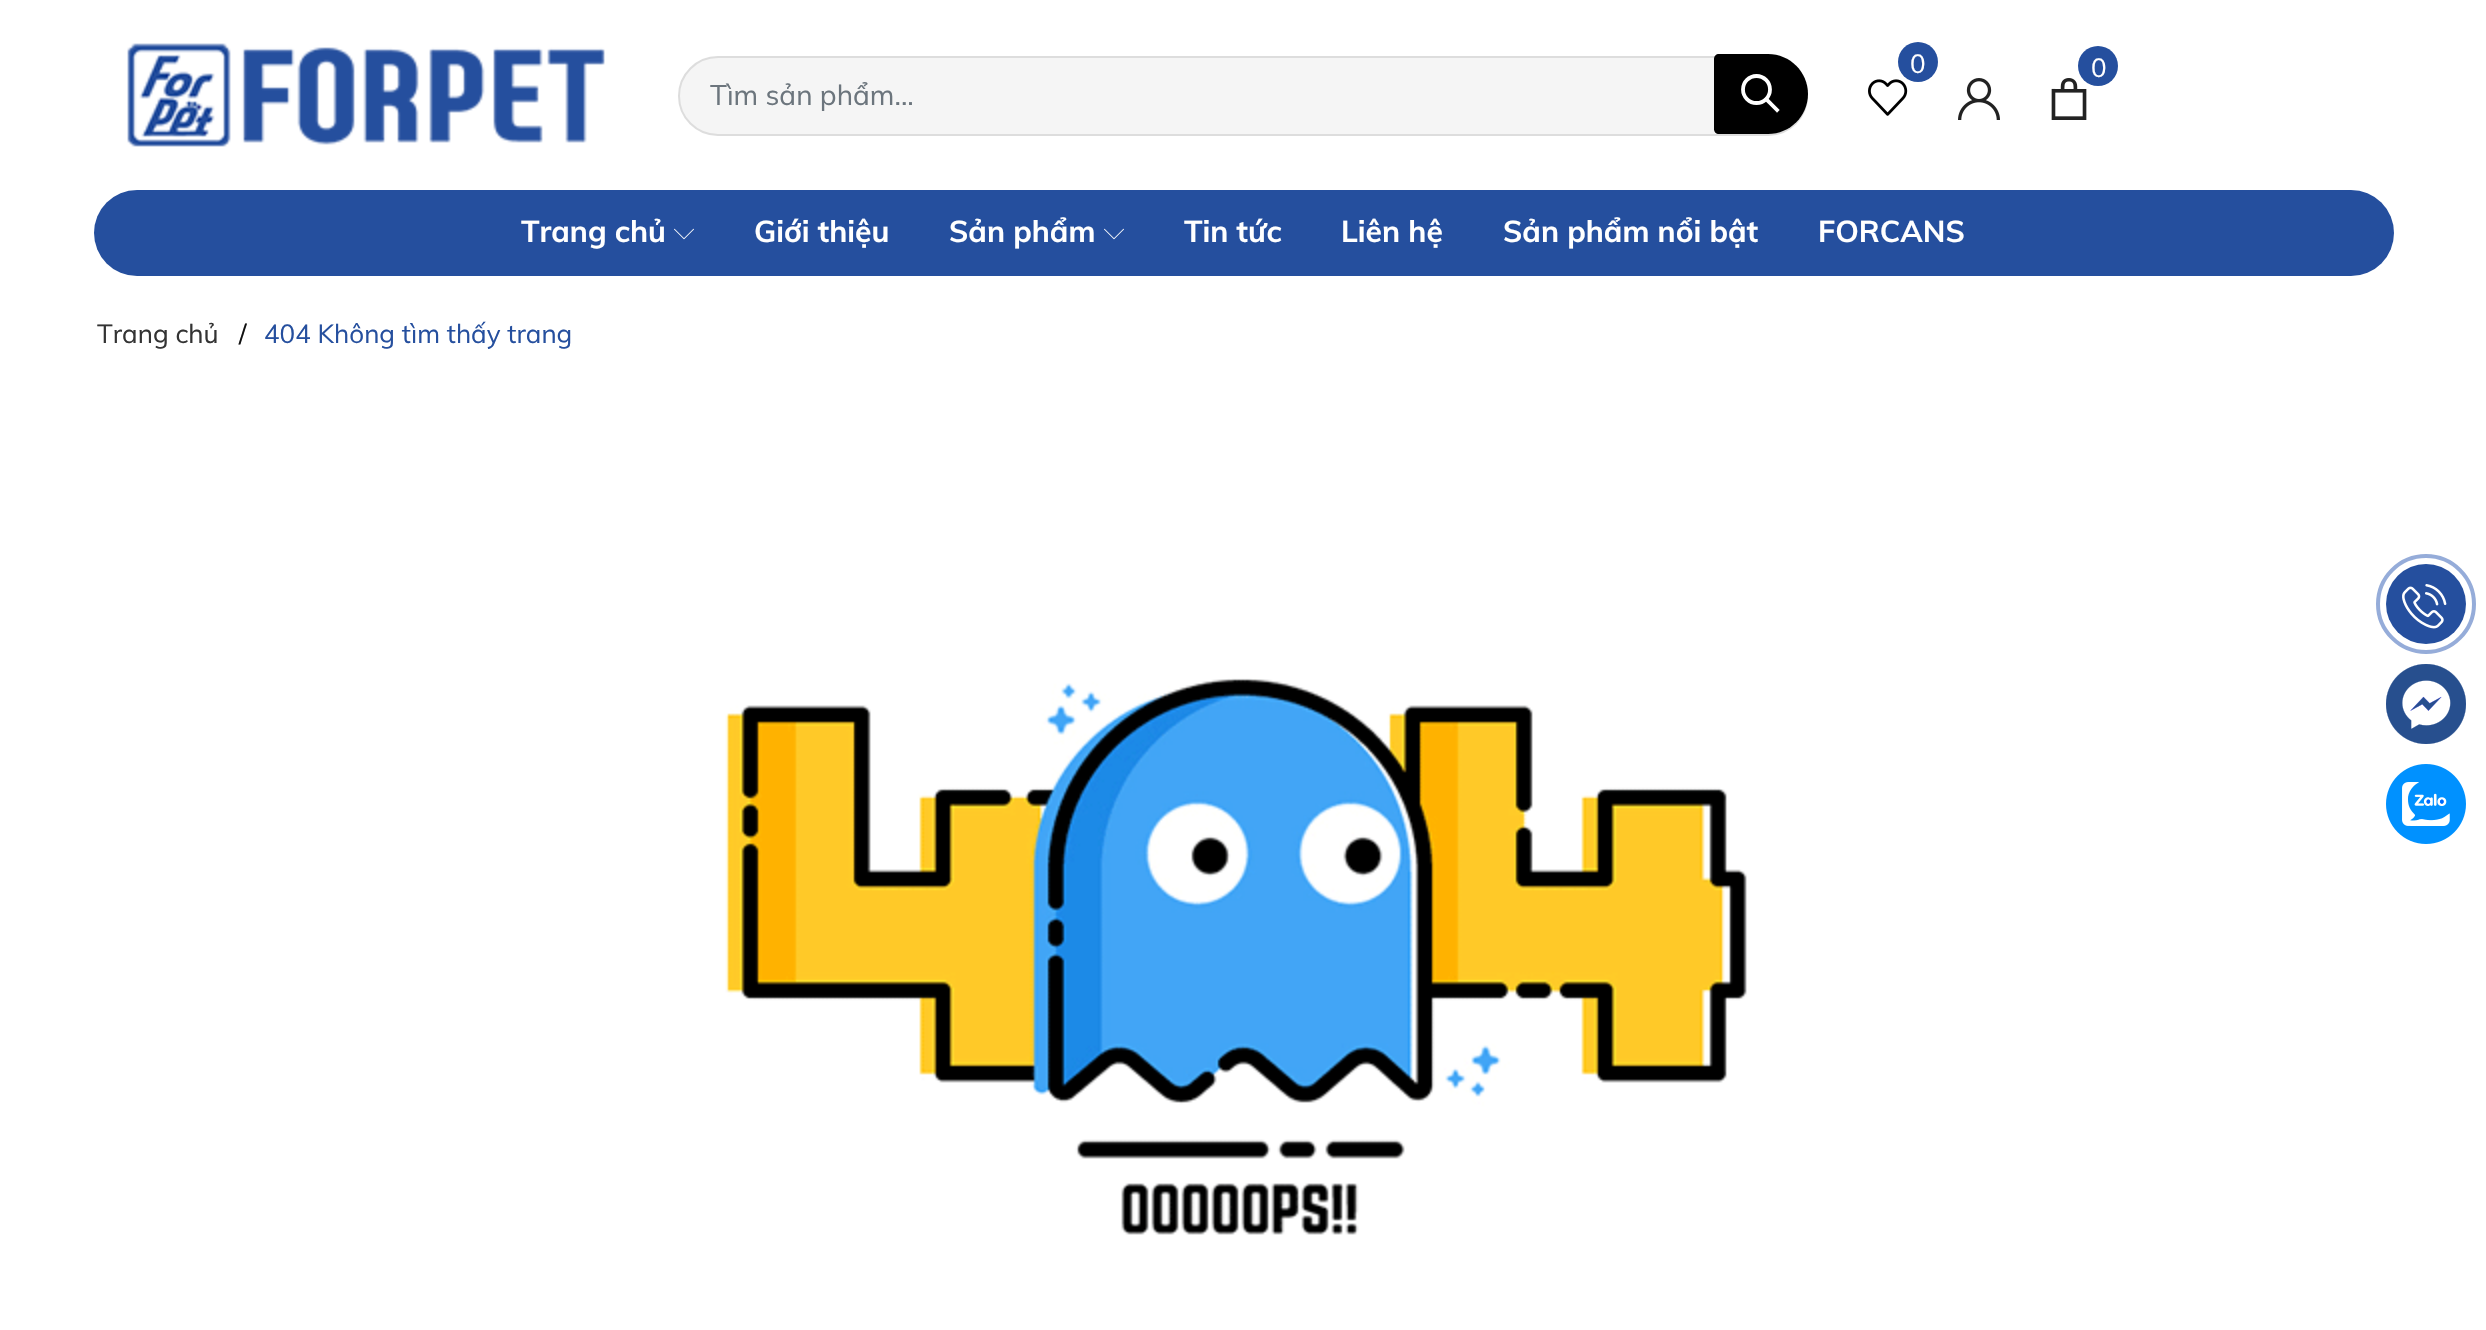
void draw(SkCanvas* canvas) {
    SkPaint paint;
    paint.setAntiAlias(true);
    canvas->clear(0xFFFFFFFF);
    canvas->drawImageRect(SkImages::DeferredFromEncodedData(SkData::MakeFromFileName("img1.png")), SkRect::MakeXYWH(127, 43, 478, 104), SkSamplingOptions());
    canvas->drawImageRect(SkImages::DeferredFromEncodedData(SkData::MakeFromFileName("img2.png")), SkRect::MakeXYWH(1868, 79, 40, 37), SkSamplingOptions());
    paint.setColor(0xFF254F9E);
    canvas->drawCircle(1918, 62, 20, paint);
    SkFont font1(fontMgr->matchFamilyStyle("Mulish", SkFontStyle::Normal()), 26);
    font1.setSubpixel(true);
    paint.setColor(0xFFFFFFFF);
    canvas->drawString("0", 1910, 73, font1, paint);
    canvas->drawImageRect(SkImages::DeferredFromEncodedData(SkData::MakeFromFileName("img3.png")), SkRect::MakeXYWH(2051, 78, 36, 42), SkSamplingOptions());
    paint.setColor(0xFF254F9E);
    canvas->drawCircle(2098, 66, 20, paint);
    paint.setColor(0xFFFFFFFF);
    canvas->drawString("0", 2091, 77, font1, paint);
    canvas->drawImageRect(SkImages::DeferredFromEncodedData(SkData::MakeFromFileName("img4.png")), SkRect::MakeXYWH(1958, 78, 42, 42), SkSamplingOptions());
    paint.setColor(0xFFF5F5F5);
    canvas->drawRoundRect(SkRect::MakeXYWH(679, 57, 1128, 78), 39, 39, paint);
    paint.setStyle(SkPaint::kStroke_Style);
    paint.setStrokeWidth(2);
    paint.setColor(0xFFDDDDDD);
    canvas->drawRoundRect(SkRect::MakeXYWH(679, 57, 1128, 78), 39, 39, paint);
    SkFont font2(fontMgr->matchFamilyStyle("Mulish", SkFontStyle::Normal()), 28);
    font2.setSubpixel(true);
    paint.setStyle(SkPaint::kFill_Style);
    paint.setColor(0xFF6C757D);
    canvas->drawString("Tìm sản phẩm...", 710, 105, font2, paint);
    paint.setColor(0xFF000000);
    canvas->drawPath(SkPathBuilder().moveTo(1719, 54).lineTo(1768, 54).cubicTo(1790, 54, 1808, 72, 1808, 94).cubicTo(1808, 116, 1790, 134, 1768, 134).lineTo(1719, 134).cubicTo(1716, 134, 1714, 132, 1714, 129).lineTo(1714, 59).cubicTo(1714, 56, 1716, 54, 1719, 54).close().detach(), paint);
    paint.setStyle(SkPaint::kStroke_Style);
    paint.setStrokeWidth(3.8f);
    paint.setStrokeCap(SkPaint::kSquare_Cap);
    paint.setColor(0xFFFFFFFF);
    canvas->drawPath(SkPathBuilder().moveTo(1777, 110).lineTo(1766.5f, 99.5f).detach(), paint);
    paint.setStrokeCap(SkPaint::kButt_Cap);
    canvas->drawCircle(1756.5f, 89.5f, 13.5f, paint);
    paint.setStyle(SkPaint::kFill_Style);
    paint.setColor(0xFF254F9E);
    canvas->drawRoundRect(SkRect::MakeXYWH(94, 190, 2300, 86), 43, 43, paint);
    SkFont font3(fontMgr->matchFamilyStyle("Mulish", SkFontStyle::Bold()), 30);
    font3.setSubpixel(true);
    paint.setColor(0xFFFFFFFF);
    canvas->drawString("Trang chủ", 521, 242, font3, paint);
    canvas->drawImageRect(SkImages::DeferredFromEncodedData(SkData::MakeFromFileName("img5.png")), SkRect::MakeXYWH(674, 228, 20, 12), SkSamplingOptions());
    canvas->drawString("Giới thiệu", 754, 242, font3, paint);
    canvas->drawString("Sản phẩm", 949, 242, font3, paint);
    canvas->drawImageRect(SkImages::DeferredFromEncodedData(SkData::MakeFromFileName("img5.png")), SkRect::MakeXYWH(1104, 228, 20, 12), SkSamplingOptions());
    canvas->drawString("Tin tức", 1184, 242, font3, paint);
    canvas->drawString("Liên hệ", 1341, 242, font3, paint);
    canvas->drawString("Sản phẩm nổi bật", 1503, 242, font3, paint);
    canvas->drawString("FORCANS", 1818, 242, font3, paint);
    paint.setColor(0xFF333333);
    canvas->drawString("Trang chủ", 97, 343, font1, paint);
    paint.setColor(0xFF111111);
    canvas->drawString("/", 239, 343, font1, paint);
    paint.setColor(0xFF254F9E);
    canvas->drawString("404 Không tìm thấy trang", 264, 343, font1, paint);
    canvas->drawImageRect(SkImages::DeferredFromEncodedData(SkData::MakeFromFileName("img6.png")), SkRect::MakeXYWH(725, 678, 1022, 557), SkSamplingOptions());
    paint.setStyle(SkPaint::kStroke_Style);
    paint.setStrokeWidth(4);
    paint.setColor(0xFF95ACD9);
    canvas->drawCircle(2426, 604, 48, paint);
    paint.setStyle(SkPaint::kFill_Style);
    paint.setColor(0xFF254F9E);
    canvas->drawCircle(2426, 604, 40, paint);
    canvas->drawImageRect(SkImages::DeferredFromEncodedData(SkData::MakeFromFileName("img7.png")), SkRect::MakeXYWH(2402, 584, 45, 45), SkSamplingOptions());
    canvas->drawImageRect(SkImages::DeferredFromEncodedData(SkData::MakeFromFileName("img8.png")), SkRect::MakeXYWH(2386, 664, 80, 80), SkSamplingOptions());
    canvas->drawImageRect(SkImages::DeferredFromEncodedData(SkData::MakeFromFileName("img9.png")), SkRect::MakeXYWH(2386, 764, 80, 80), SkSamplingOptions());
}
